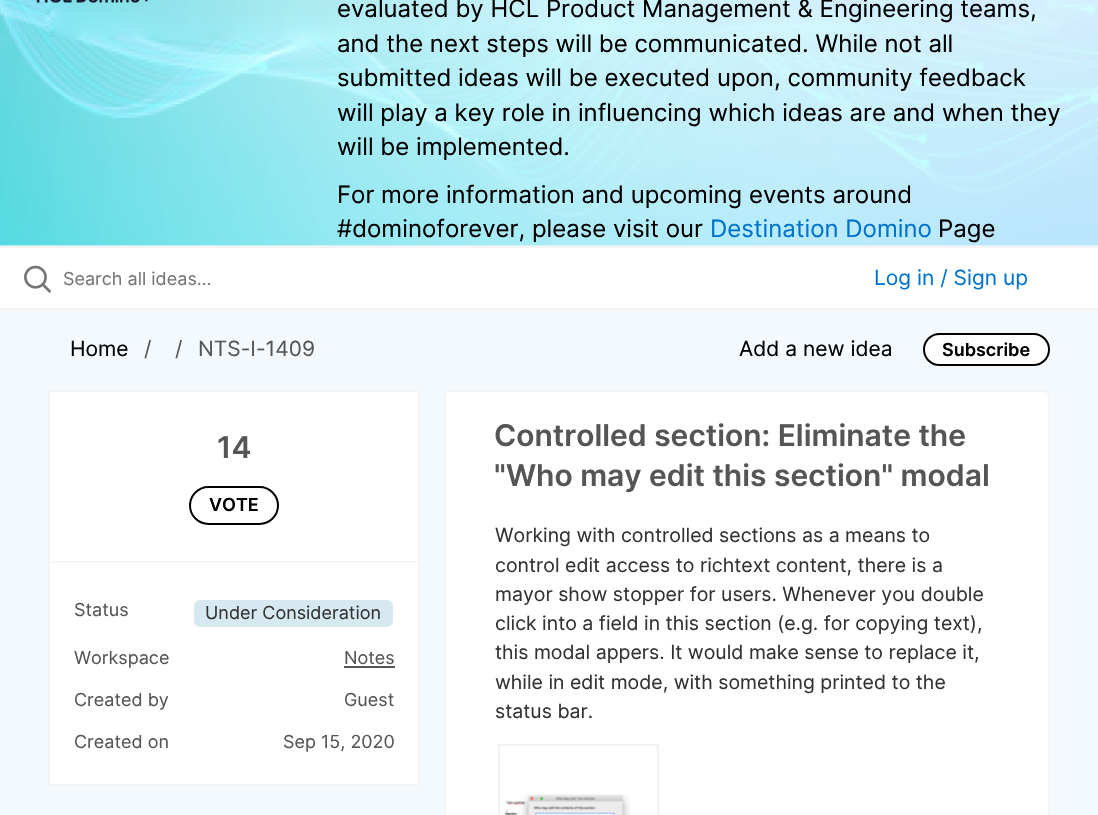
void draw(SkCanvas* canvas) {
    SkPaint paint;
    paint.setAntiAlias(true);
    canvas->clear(0xFFF3F9FD);
    paint.setColor(0xFFFFFFFF);
    canvas->drawRect(SkRect::MakeXYWH(0, 245, 1098, 1), paint);
    canvas->drawImageRect(SkImages::DeferredFromEncodedData(SkData::MakeFromFileName("img1.png")), SkRect::MakeXYWH(0, 0, 1098, 246), SkSamplingOptions());
    paint.setColor(0xFFF4F4F4);
    canvas->drawRect(SkRect::MakeXYWH(0, 246, 1098, 2), paint);
    canvas->drawImageRect(SkImages::DeferredFromEncodedData(SkData::MakeFromFileName("img2.png")), SkRect::MakeXYWH(36, 0, 112, 4), SkSamplingOptions());
    SkFont font1(fontMgr->matchFamilyStyle("Inter", SkFontStyle::Normal()), 24);
    font1.setSubpixel(true);
    paint.setColor(0xFF000000);
    canvas->drawString("evaluated by HCL Product Management & Engineering teams,", 337, 17, font1, paint);
    canvas->drawString("and the next steps will be communicated. While not all", 337, 52, font1, paint);
    canvas->drawString("submitted ideas will be executed upon, community feedback", 337, 86, font1, paint);
    canvas->drawString("will play a key role in influencing which ideas are and when they", 337, 121, font1, paint);
    canvas->drawString("will be implemented.", 337, 155, font1, paint);
    canvas->drawString("For more information and upcoming events around", 337, 203, font1, paint);
    canvas->drawString("#dominoforever, please visit our", 337, 237, font1, paint);
    paint.setColor(0xFF0073CF);
    canvas->drawString("Destination Domino", 710, 237, font1, paint);
    paint.setColor(0xFF000000);
    canvas->drawString("Page", 938, 237, font1, paint);
    paint.setColor(0xFFFFFFFF);
    canvas->drawRect(SkRect::MakeXYWH(0, 248, 1098, 60), paint);
    paint.setColor(0xFFF4F4F4);
    canvas->drawRect(SkRect::MakeXYWH(0, 308, 1098, 2), paint);
    canvas->drawImageRect(SkImages::DeferredFromEncodedData(SkData::MakeFromFileName("img3.png")), SkRect::MakeXYWH(24, 265, 27, 28), SkSamplingOptions());
    SkFont font2(fontMgr->matchFamilyStyle("Inter", SkFontStyle::Normal()), 18);
    font2.setSubpixel(true);
    paint.setColor(0xFF767676);
    canvas->drawString("Search all ideas…", 63, 285, font2, paint);
    SkFont font3(fontMgr->matchFamilyStyle("Inter", SkFontStyle::Normal()), 21);
    font3.setSubpixel(true);
    paint.setColor(0xFF0073CF);
    canvas->drawString("Log in / Sign up", 874, 285, font3, paint);
    paint.setColor(0xFF000000);
    canvas->drawString("Home", 70, 356, font3, paint);
    paint.setColor(0xFF555555);
    canvas->drawString("/", 144, 356, font3, paint);
    canvas->drawString("/", 175, 356, font3, paint);
    canvas->drawString("NTS-I-1409", 198, 356, font3, paint);
    paint.setColor(0xFF000000);
    canvas->drawString("Add a new idea", 739, 356, font3, paint);
    paint.setColor(0xFFFFFFFF);
    canvas->drawRoundRect(SkRect::MakeXYWH(924, 334, 125, 31), 15.5f, 15.5f, paint);
    paint.setStyle(SkPaint::kStroke_Style);
    paint.setStrokeWidth(2);
    paint.setColor(0xFF000000);
    canvas->drawRoundRect(SkRect::MakeXYWH(924, 334, 125, 31), 15.5f, 15.5f, paint);
    SkFont font4(fontMgr->matchFamilyStyle("Inter", SkFontStyle(600, SkFontStyle::kNormal_Width, SkFontStyle::kUpright_Slant)), 18);
    font4.setSubpixel(true);
    paint.setStyle(SkPaint::kFill_Style);
    canvas->drawString("Subscribe", 942, 356, font4, paint);
    paint.setColor(0xFFFFFFFF);
    canvas->drawRect(SkRect::MakeXYWH(49, 391, 370, 394), paint);
    paint.setStyle(SkPaint::kStroke_Style);
    paint.setColor(0xFFF4F4F4);
    canvas->drawRect(SkRect::MakeXYWH(49, 391, 370, 394), paint);
    SkFont font5(fontMgr->matchFamilyStyle("Inter", SkFontStyle(600, SkFontStyle::kNormal_Width, SkFontStyle::kUpright_Slant)), 30);
    font5.setSubpixel(true);
    paint.setStyle(SkPaint::kFill_Style);
    paint.setColor(0xFF555555);
    canvas->drawString("14", 217, 458, font5, paint);
    paint.setStyle(SkPaint::kStroke_Style);
    paint.setColor(0xFF000000);
    canvas->drawRoundRect(SkRect::MakeXYWH(190, 487, 88, 37), 18.5f, 18.5f, paint);
    paint.setStyle(SkPaint::kFill_Style);
    canvas->drawString("VOTE", 209, 511, font4, paint);
    paint.setColor(0xFFF4F4F4);
    canvas->drawRect(SkRect::MakeXYWH(50, 561, 369, 2), paint);
    paint.setColor(0xFF555555);
    canvas->drawString("Status", 74, 616, font2, paint);
    paint.setColor(0xFFD7E9F0);
    canvas->drawRoundRect(SkRect::MakeXYWH(194, 600, 199, 27), 6, 6, paint);
    paint.setColor(0xFF333333);
    canvas->drawString("Under Consideration", 205, 619, font2, paint);
    paint.setColor(0xFF555555);
    canvas->drawString("Workspace", 74, 664, font2, paint);
    canvas->drawString("Notes", 344, 664, font2, paint);
    canvas->drawRect(SkRect::MakeXYWH(344, 666, 51, 2), paint);
    canvas->drawString("Created by", 74, 706, font2, paint);
    canvas->drawString("Guest", 344, 706, font2, paint);
    canvas->drawString("Created on", 74, 748, font2, paint);
    canvas->drawString("Sep 15, 2020", 283, 748, font2, paint);
    paint.setColor(0xFFFFFFFF);
    canvas->drawRoundRect(SkRect::MakeXYWH(445, 391, 604, 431), 5, 5, paint);
    paint.setStyle(SkPaint::kStroke_Style);
    paint.setColor(0xFFF4F4F4);
    canvas->drawRoundRect(SkRect::MakeXYWH(445, 391, 604, 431), 5, 5, paint);
    paint.setStyle(SkPaint::kFill_Style);
    paint.setColor(0xFF555555);
    canvas->drawString("Controlled section: Eliminate the", 494, 446, font5, paint);
    canvas->drawString("\"Who may edit this section\" modal", 494, 486, font5, paint);
    SkFont font6(fontMgr->matchFamilyStyle("Inter", SkFontStyle::Normal()), 19.5f);
    font6.setSubpixel(true);
    paint.setColor(0xFF333333);
    canvas->drawString("Working with controlled sections as a means to", 495, 542, font6, paint);
    canvas->drawString("control edit access to richtext content, there is a", 495, 572, font6, paint);
    canvas->drawString("mayor show stopper for users. Whenever you double", 495, 601, font6, paint);
    canvas->drawString("click into a field in this section (e.g. for copying text),", 495, 630, font6, paint);
    canvas->drawString("this modal appers. It would make sense to replace it,", 495, 659, font6, paint);
    canvas->drawString("while in edit mode, with something printed to the", 495, 689, font6, paint);
    canvas->drawString("status bar.", 495, 718, font6, paint);
    paint.setStyle(SkPaint::kStroke_Style);
    paint.setColor(0xFFF1F1F1);
    canvas->drawRect(SkRect::MakeXYWH(499, 745, 159, 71), paint);
    canvas->drawImageRect(SkImages::DeferredFromEncodedData(SkData::MakeFromFileName("img4.png")), SkRect::MakeXYWH(504, 794, 127, 21), SkSamplingOptions());
}
